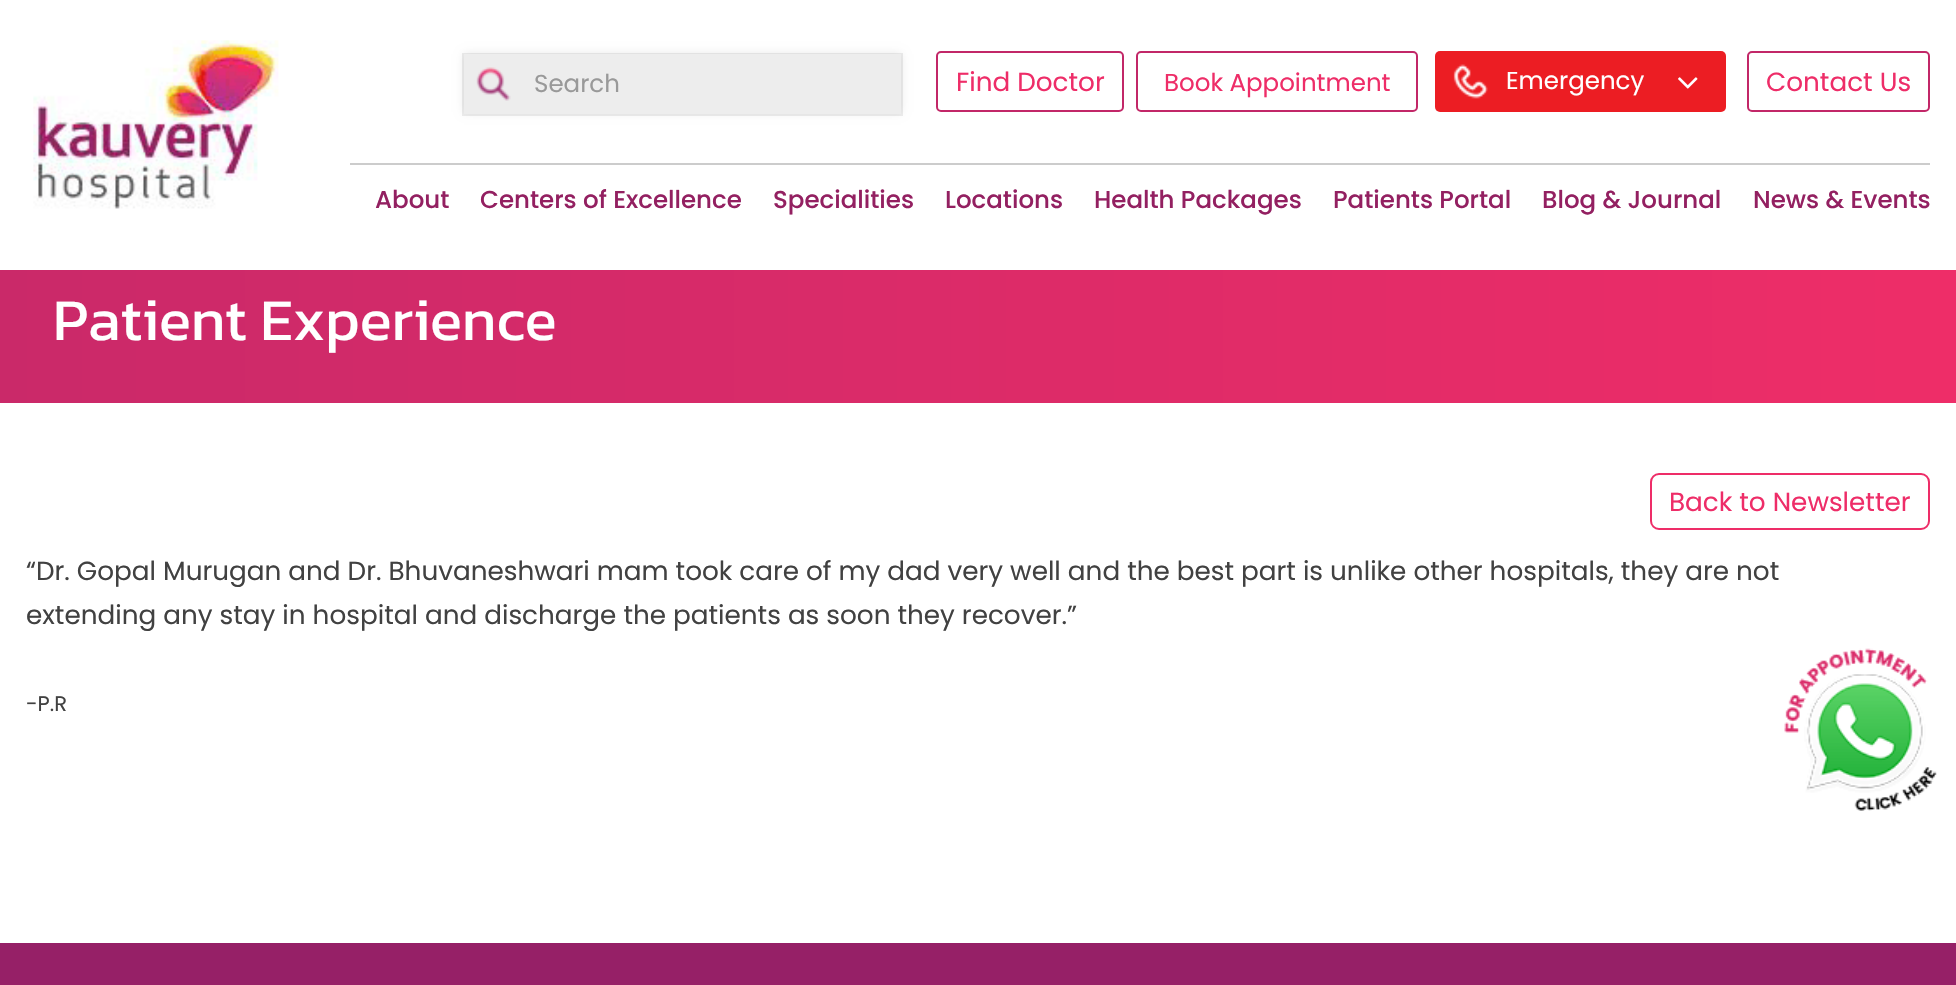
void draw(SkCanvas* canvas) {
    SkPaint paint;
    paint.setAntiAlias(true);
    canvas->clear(0xFFFFFFFF);
    canvas->drawImageRect(SkImages::DeferredFromEncodedData(SkData::MakeFromFileName("img1.png")), SkRect::MakeXYWH(33, 40, 246, 169), SkSamplingOptions());
    paint.setStyle(SkPaint::kStroke_Style);
    paint.setStrokeWidth(2);
    paint.setColor(0xFFEDEDED);
    canvas->drawRect(SkRect::MakeXYWH(463, 54, 439, 61), paint);
    paint.setStyle(SkPaint::kFill_Style);
    paint.setColor(0x1A000000);
    paint.setMaskFilter(SkMaskFilter::MakeBlur(kNormal_SkBlurStyle, 4.5f));
    canvas->drawRect(SkRect::MakeXYWH(464, 54, 437, 58), paint);
    paint.setMaskFilter(nullptr);
    paint.setColor(0xFFEDEDED);
    canvas->drawRect(SkRect::MakeXYWH(464, 54, 437, 60), paint);
    canvas->drawImageRect(SkImages::DeferredFromEncodedData(SkData::MakeFromFileName("img2.png")), SkRect::MakeXYWH(476, 67, 35, 34), SkSamplingOptions());
    SkFont font1(fontMgr->matchFamilyStyle("Poppins", SkFontStyle::Normal()), 24.5f);
    font1.setSubpixel(true);
    paint.setColor(0xFF999999);
    canvas->drawString("Search", 534, 92, font1, paint);
    paint.setStyle(SkPaint::kStroke_Style);
    paint.setColor(0xFFC22768);
    canvas->drawRoundRect(SkRect::MakeXYWH(937, 52, 186, 59), 4, 4, paint);
    SkFont font2(fontMgr->matchFamilyStyle("Poppins", SkFontStyle::Normal()), 26.25f);
    font2.setSubpixel(true);
    paint.setStyle(SkPaint::kFill_Style);
    paint.setColor(0xFFEE2D68);
    canvas->drawString("Find Doctor", 956, 91, font2, paint);
    paint.setStyle(SkPaint::kStroke_Style);
    paint.setColor(0xFFC22768);
    canvas->drawRoundRect(SkRect::MakeXYWH(1137, 52, 280, 59), 4, 4, paint);
    paint.setStyle(SkPaint::kFill_Style);
    paint.setColor(0xFFEE2D68);
    canvas->drawString("Book Appointment", 1164, 91, font1, paint);
    paint.setColor(0xFFEC1D23);
    canvas->drawRoundRect(SkRect::MakeXYWH(1435, 51, 291, 61), 5, 5, paint);
    canvas->drawImageRect(SkImages::DeferredFromEncodedData(SkData::MakeFromFileName("img3.png")), SkRect::MakeXYWH(1453, 64, 35, 35), SkSamplingOptions());
    paint.setColor(0xFFFFFFFF);
    canvas->drawString("Emergency", 1506, 89, font1, paint);
    canvas->drawImageRect(SkImages::DeferredFromEncodedData(SkData::MakeFromFileName("img4.png")), SkRect::MakeXYWH(1678, 77, 20, 12), SkSamplingOptions());
    paint.setStyle(SkPaint::kStroke_Style);
    paint.setColor(0xFFC22768);
    canvas->drawRoundRect(SkRect::MakeXYWH(1748, 52, 181, 59), 4, 4, paint);
    paint.setStyle(SkPaint::kFill_Style);
    paint.setColor(0xFFEE2D68);
    canvas->drawString("Contact Us", 1766, 91, font2, paint);
    paint.setColor(0xFFCCCCCC);
    canvas->drawRect(SkRect::MakeXYWH(350, 163, 1580, 2), paint);
    SkFont font3(fontMgr->matchFamilyStyle("Poppins", SkFontStyle(500, SkFontStyle::kNormal_Width, SkFontStyle::kUpright_Slant)), 24.5f);
    font3.setSubpixel(true);
    paint.setColor(0xFF932061);
    canvas->drawString("About", 375, 208, font3, paint);
    canvas->drawString("Centers of Excellence", 480, 208, font3, paint);
    canvas->drawString("Specialities", 773, 208, font3, paint);
    canvas->drawString("Locations", 945, 208, font3, paint);
    canvas->drawString("Health Packages", 1094, 208, font3, paint);
    canvas->drawString("Patients Portal", 1333, 208, font3, paint);
    canvas->drawString("Blog & Journal", 1542, 208, font3, paint);
    canvas->drawString("News & Events", 1753, 208, font3, paint);
    {
        const SkColor colors[] = {0xFFCA2969, 0xFFEE2D68};
        const float stops[] = {0, 1};
        const SkPoint ends[] = {{0, 315}, {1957, 315}};
        paint.setShader(SkGradientShader::MakeLinear(ends, colors, stops, 2, SkTileMode::kClamp));
        paint.setAlpha(255);
    }
    canvas->drawRect(SkRect::MakeXYWH(0, 270, 1956, 133), paint);
    SkFont font4(fontMgr->matchFamilyStyle("Kanit", SkFontStyle::Normal()), 59.5f);
    font4.setSubpixel(true);
    paint.setShader(nullptr);
    paint.setColor(0xFFFFFFFF);
    canvas->drawString("Patient Experience", 53, 340, font4, paint);
    paint.setStyle(SkPaint::kStroke_Style);
    paint.setColor(0xFFEE2D68);
    canvas->drawRoundRect(SkRect::MakeXYWH(1651, 474, 278, 55), 8, 8, paint);
    paint.setStyle(SkPaint::kFill_Style);
    canvas->drawString("Back to Newsletter", 1669, 511, font2, paint);
    paint.setColor(0xFF414141);
    canvas->drawString("“Dr. Gopal Murugan and Dr. Bhuvaneshwari mam took care of my dad very well and the best part is unlike other hospitals, they are not", 26, 580, font2, paint);
    canvas->drawString("extending any stay in hospital and discharge the patients as soon they recover.”", 26, 624, font2, paint);
    SkFont font5(fontMgr->matchFamilyStyle("Poppins", SkFontStyle::Normal()), 21);
    font5.setSubpixel(true);
    canvas->drawString("-P.R", 26, 711, font5, paint);
    canvas->drawImageRect(SkImages::DeferredFromEncodedData(SkData::MakeFromFileName("img5.png")), SkRect::MakeXYWH(1784, 648, 153, 163), SkSamplingOptions());
    paint.setColor(0xFF962067);
    canvas->drawRect(SkRect::MakeXYWH(0, 943, 1956, 42), paint);
}
